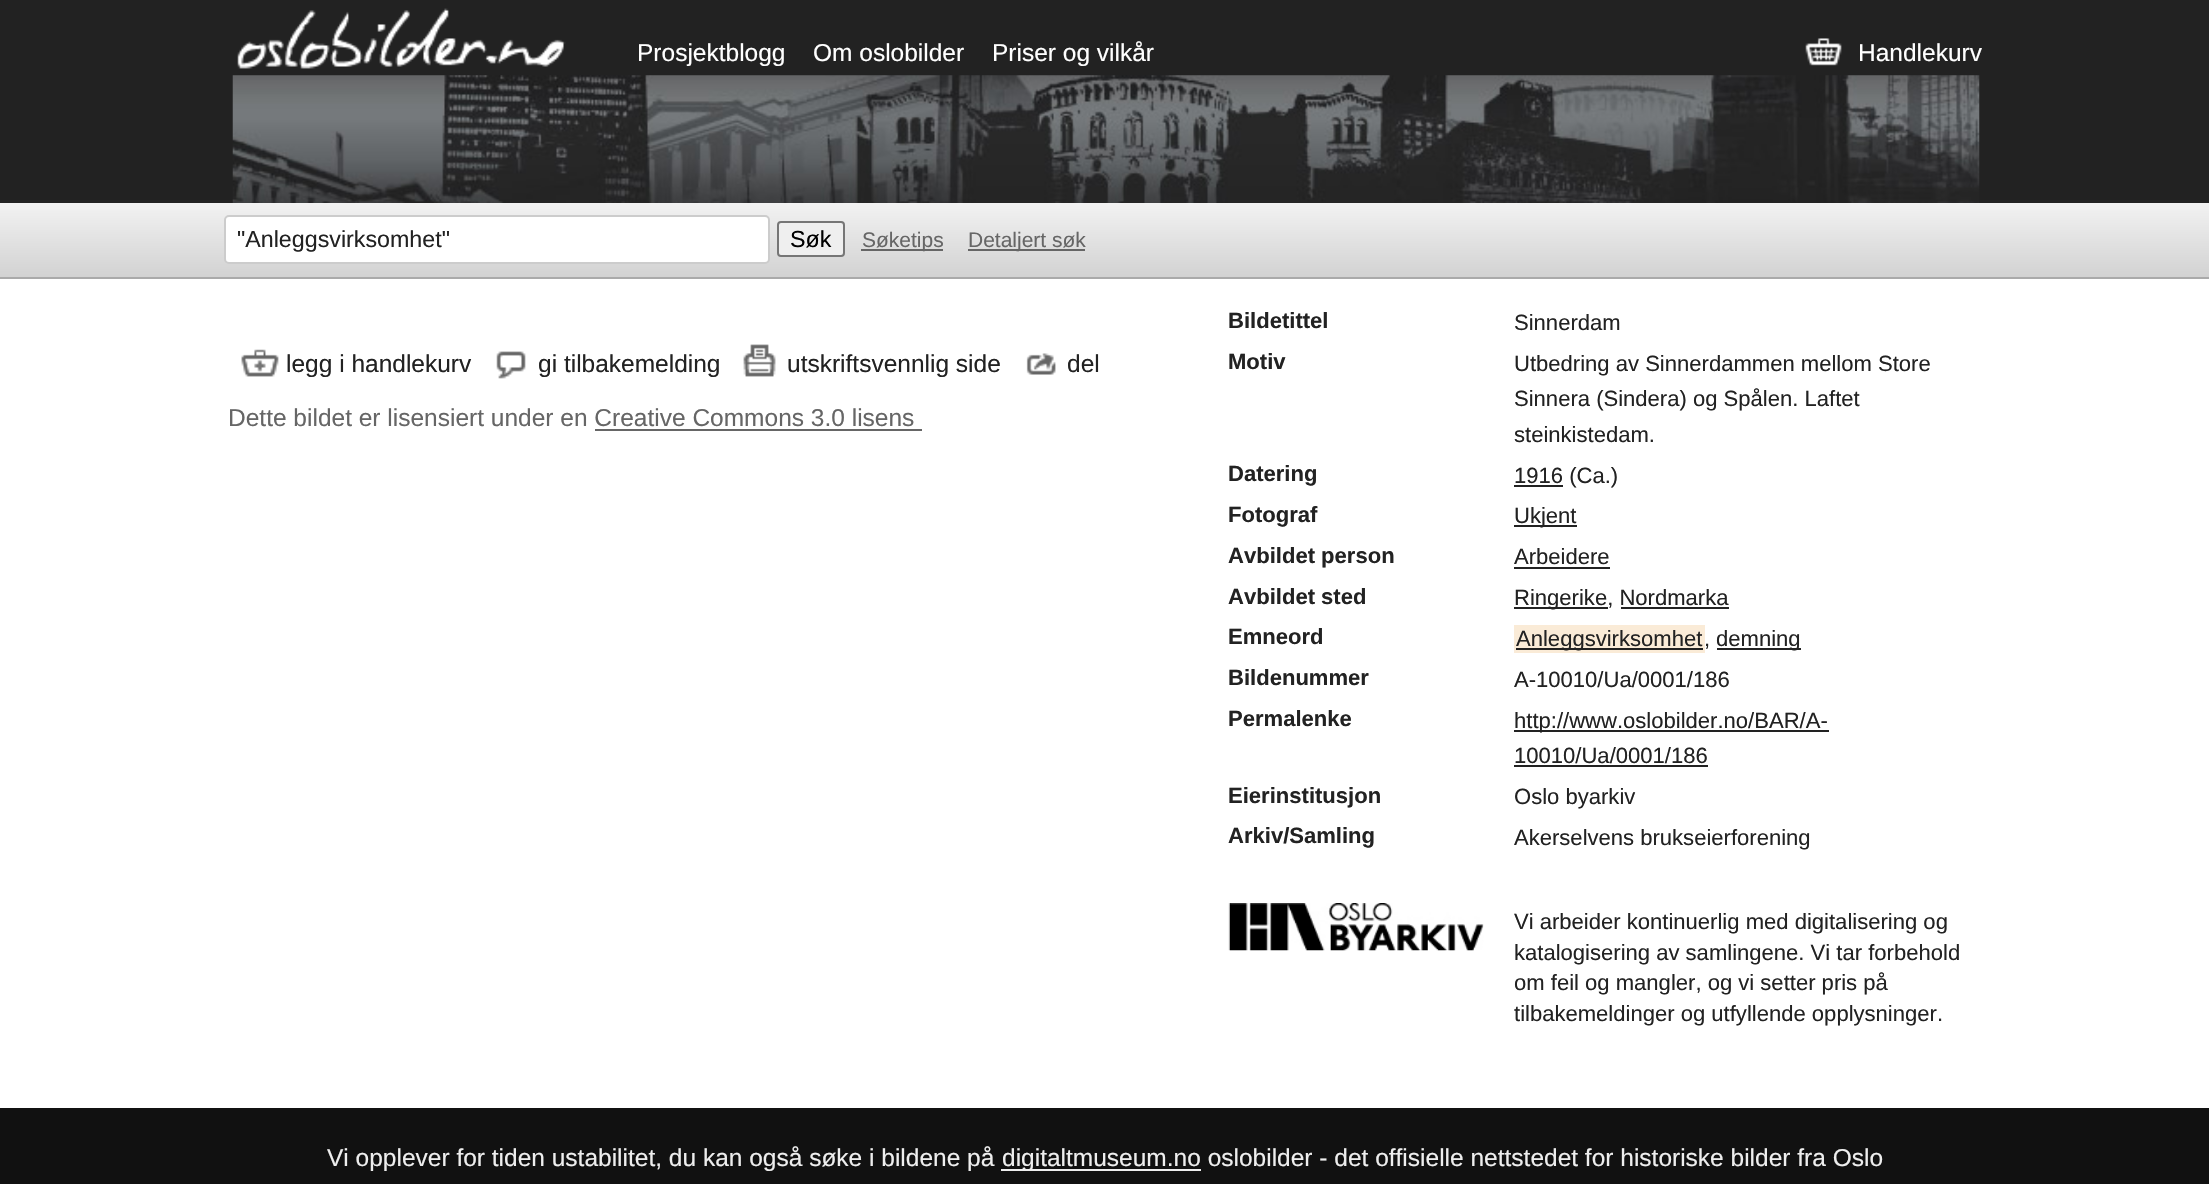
void draw(SkCanvas* canvas) {
    SkPaint paint;
    paint.setAntiAlias(true);
    canvas->clear(0xFFFFFFFF);
    paint.setColor(0xFF222222);
    canvas->drawRect(SkRect::MakeXYWH(0, 0, 2209, 203), paint);
    canvas->drawImageRect(SkImages::DeferredFromEncodedData(SkData::MakeFromFileName("img1.png")), SkRect::MakeXYWH(232, 75, 1748, 128), SkSamplingOptions());
    canvas->drawImageRect(SkImages::DeferredFromEncodedData(SkData::MakeFromFileName("img2.png")), SkRect::MakeXYWH(237, 8, 329, 61), SkSamplingOptions());
    SkFont font1(fontMgr->matchFamilyStyle("Liberation Sans", SkFontStyle::Normal()), 24.5f);
    font1.setSubpixel(true);
    paint.setColor(0xFFFFFFFF);
    canvas->drawString("Prosjektblogg", 637, 61, font1, paint);
    canvas->drawString("Om oslobilder", 813, 61, font1, paint);
    canvas->drawString("Priser og vilkår", 992, 61, font1, paint);
    canvas->drawImageRect(SkImages::DeferredFromEncodedData(SkData::MakeFromFileName("img3.png")), SkRect::MakeXYWH(1805, 38, 37, 28), SkSamplingOptions());
    canvas->drawString("Handlekurv", 1858, 61, font1, paint);
    {
        const SkColor colors[] = {0xFFF2F2F2, 0xFFD2D2D2};
        const float stops[] = {0, 1};
        const SkPoint ends[] = {{1105, 203}, {1105, 277}};
        paint.setShader(SkGradientShader::MakeLinear(ends, colors, stops, 2, SkTileMode::kClamp));
        paint.setAlpha(255);
    }
    canvas->drawRect(SkRect::MakeXYWH(0, 203, 2209, 74), paint);
    paint.setShader(nullptr);
    paint.setColor(0xFFAAAAAA);
    canvas->drawRect(SkRect::MakeXYWH(0, 277, 2209, 2), paint);
    paint.setColor(0xFFFFFFFF);
    canvas->drawRoundRect(SkRect::MakeXYWH(225, 216, 544, 47), 4, 4, paint);
    paint.setStyle(SkPaint::kStroke_Style);
    paint.setStrokeWidth(2);
    paint.setColor(0xFFCCCCCC);
    canvas->drawRoundRect(SkRect::MakeXYWH(225, 216, 544, 47), 4, 4, paint);
    SkFont font2(fontMgr->matchFamilyStyle("Liberation Sans", SkFontStyle::Normal()), 23.25f);
    font2.setSubpixel(true);
    paint.setStyle(SkPaint::kFill_Style);
    paint.setColor(0xFF222222);
    canvas->drawString("\"Anleggsvirksomhet\"", 237, 247, font2, paint);
    paint.setColor(0xFFEFEFEF);
    canvas->drawRoundRect(SkRect::MakeXYWH(778, 222, 66, 34), 3, 3, paint);
    paint.setStyle(SkPaint::kStroke_Style);
    paint.setColor(0xFF767676);
    canvas->drawRoundRect(SkRect::MakeXYWH(778, 222, 66, 34), 3, 3, paint);
    paint.setStyle(SkPaint::kFill_Style);
    paint.setColor(0xFF000000);
    canvas->drawString("Søk", 790, 247, font2, paint);
    paint.setColor(0xFF666666);
    canvas->drawRect(SkRect::MakeXYWH(861, 249, 82, 2), paint);
    SkFont font3(fontMgr->matchFamilyStyle("Liberation Sans", SkFontStyle::Normal()), 21);
    font3.setSubpixel(true);
    canvas->drawString("Søketips", 862, 247, font3, paint);
    canvas->drawRect(SkRect::MakeXYWH(968, 249, 117, 2), paint);
    canvas->drawString("Detaljert søk", 968, 247, font3, paint);
    canvas->drawImageRect(SkImages::DeferredFromEncodedData(SkData::MakeFromFileName("img4.png")), SkRect::MakeXYWH(241, 349, 38, 28), SkSamplingOptions());
    paint.setColor(0xFF222222);
    canvas->drawString("legg i handlekurv", 286, 372, font1, paint);
    canvas->drawImageRect(SkImages::DeferredFromEncodedData(SkData::MakeFromFileName("img5.png")), SkRect::MakeXYWH(496, 351, 30, 28), SkSamplingOptions());
    canvas->drawString("gi tilbakemelding", 538, 372, font1, paint);
    canvas->drawImageRect(SkImages::DeferredFromEncodedData(SkData::MakeFromFileName("img6.png")), SkRect::MakeXYWH(743, 344, 33, 33), SkSamplingOptions());
    canvas->drawString("utskriftsvennlig side", 787, 372, font1, paint);
    canvas->drawImageRect(SkImages::DeferredFromEncodedData(SkData::MakeFromFileName("img7.png")), SkRect::MakeXYWH(1026, 353, 30, 22), SkSamplingOptions());
    canvas->drawString("del", 1067, 372, font1, paint);
    paint.setColor(0xFF666666);
    canvas->drawString("Dette bildet er lisensiert under en Creative Commons 3.0 lisens", 228, 426, font1, paint);
    canvas->drawRect(SkRect::MakeXYWH(595, 429, 327, 2), paint);
    SkFont font4(fontMgr->matchFamilyStyle("Liberation Sans", SkFontStyle::Bold()), 22.05f);
    font4.setSubpixel(true);
    paint.setColor(0xFF222222);
    canvas->drawString("Bildetittel", 1228, 328, font4, paint);
    SkFont font5(fontMgr->matchFamilyStyle("Liberation Sans", SkFontStyle::Normal()), 22.05f);
    font5.setSubpixel(true);
    canvas->drawString("Sinnerdam", 1514, 330, font5, paint);
    canvas->drawString("Motiv", 1228, 369, font4, paint);
    canvas->drawString("Utbedring av Sinnerdammen mellom Store", 1514, 371, font5, paint);
    canvas->drawString("Sinnera (Sindera) og Spålen. Laftet", 1514, 406, font5, paint);
    canvas->drawString("steinkistedam.", 1514, 442, font5, paint);
    canvas->drawString("Datering", 1228, 481, font4, paint);
    canvas->drawRect(SkRect::MakeXYWH(1514, 485, 49, 2), paint);
    canvas->drawString("1916 (Ca.)", 1514, 483, font5, paint);
    canvas->drawString("Fotograf", 1228, 522, font4, paint);
    canvas->drawRect(SkRect::MakeXYWH(1514, 525, 63, 2), paint);
    canvas->drawString("Ukjent", 1514, 523, font5, paint);
    canvas->drawString("Avbildet person", 1228, 563, font4, paint);
    canvas->drawString("Arbeidere", 1514, 564, font5, paint);
    canvas->drawRect(SkRect::MakeXYWH(1514, 567, 96, 2), paint);
    canvas->drawString("Avbildet sted", 1228, 604, font4, paint);
    canvas->drawRect(SkRect::MakeXYWH(1514, 607, 94, 2), paint);
    canvas->drawString("Ringerike, Nordmarka", 1514, 605, font5, paint);
    canvas->drawRect(SkRect::MakeXYWH(1621, 607, 108, 2), paint);
    canvas->drawString("Emneord", 1228, 644, font4, paint);
    paint.setColor(0xFFFAEBD7);
    canvas->drawRect(SkRect::MakeXYWH(1514, 625, 191, 28), paint);
    paint.setColor(0xFF222222);
    canvas->drawRect(SkRect::MakeXYWH(1516, 648, 187, 2), paint);
    canvas->drawString("Anleggsvirksomhet", 1516, 646, font5, paint);
    canvas->drawString(",", 1704, 646, font5, paint);
    canvas->drawRect(SkRect::MakeXYWH(1717, 648, 84, 2), paint);
    canvas->drawString("demning", 1716, 646, font5, paint);
    canvas->drawString("Bildenummer", 1228, 685, font4, paint);
    canvas->drawString("A-10010/Ua/0001/186", 1514, 687, font5, paint);
    canvas->drawString("Permalenke", 1228, 726, font4, paint);
    canvas->drawRect(SkRect::MakeXYWH(1514, 730, 315, 2), paint);
    canvas->drawString("http://www.oslobilder.no/BAR/A-", 1514, 728, font5, paint);
    canvas->drawString("10010/Ua/0001/186", 1514, 763, font5, paint);
    canvas->drawRect(SkRect::MakeXYWH(1514, 765, 194, 2), paint);
    canvas->drawString("Eierinstitusjon", 1228, 803, font4, paint);
    canvas->drawString("Oslo byarkiv", 1514, 804, font5, paint);
    canvas->drawString("Arkiv/Samling", 1228, 843, font4, paint);
    canvas->drawString("Akerselvens brukseierforening", 1514, 845, font5, paint);
    canvas->drawImageRect(SkImages::DeferredFromEncodedData(SkData::MakeFromFileName("img8.png")), SkRect::MakeXYWH(1228, 903, 256, 48), SkSamplingOptions());
    canvas->drawString("Vi arbeider kontinuerlig med digitalisering og", 1514, 929, font5, paint);
    canvas->drawString("katalogisering av samlingene. Vi tar forbehold", 1514, 960, font5, paint);
    canvas->drawString("om feil og mangler, og vi setter pris på", 1514, 990, font5, paint);
    canvas->drawString("tilbakemeldinger og utfyllende opplysninger.", 1514, 1021, font5, paint);
    paint.setColor(0xFF111111);
    canvas->drawRect(SkRect::MakeXYWH(0, 1108, 2209, 76), paint);
    paint.setColor(0xFFEEEEEE);
    canvas->drawString("Vi opplever for tiden ustabilitet, du kan også søke i bildene på", 327, 1166, font1, paint);
    canvas->drawRect(SkRect::MakeXYWH(1001, 1169, 200, 2), paint);
    canvas->drawString("digitaltmuseum.no oslobilder - det offisielle nettstedet for historiske bilder fra Oslo", 1002, 1166, font1, paint);
}
